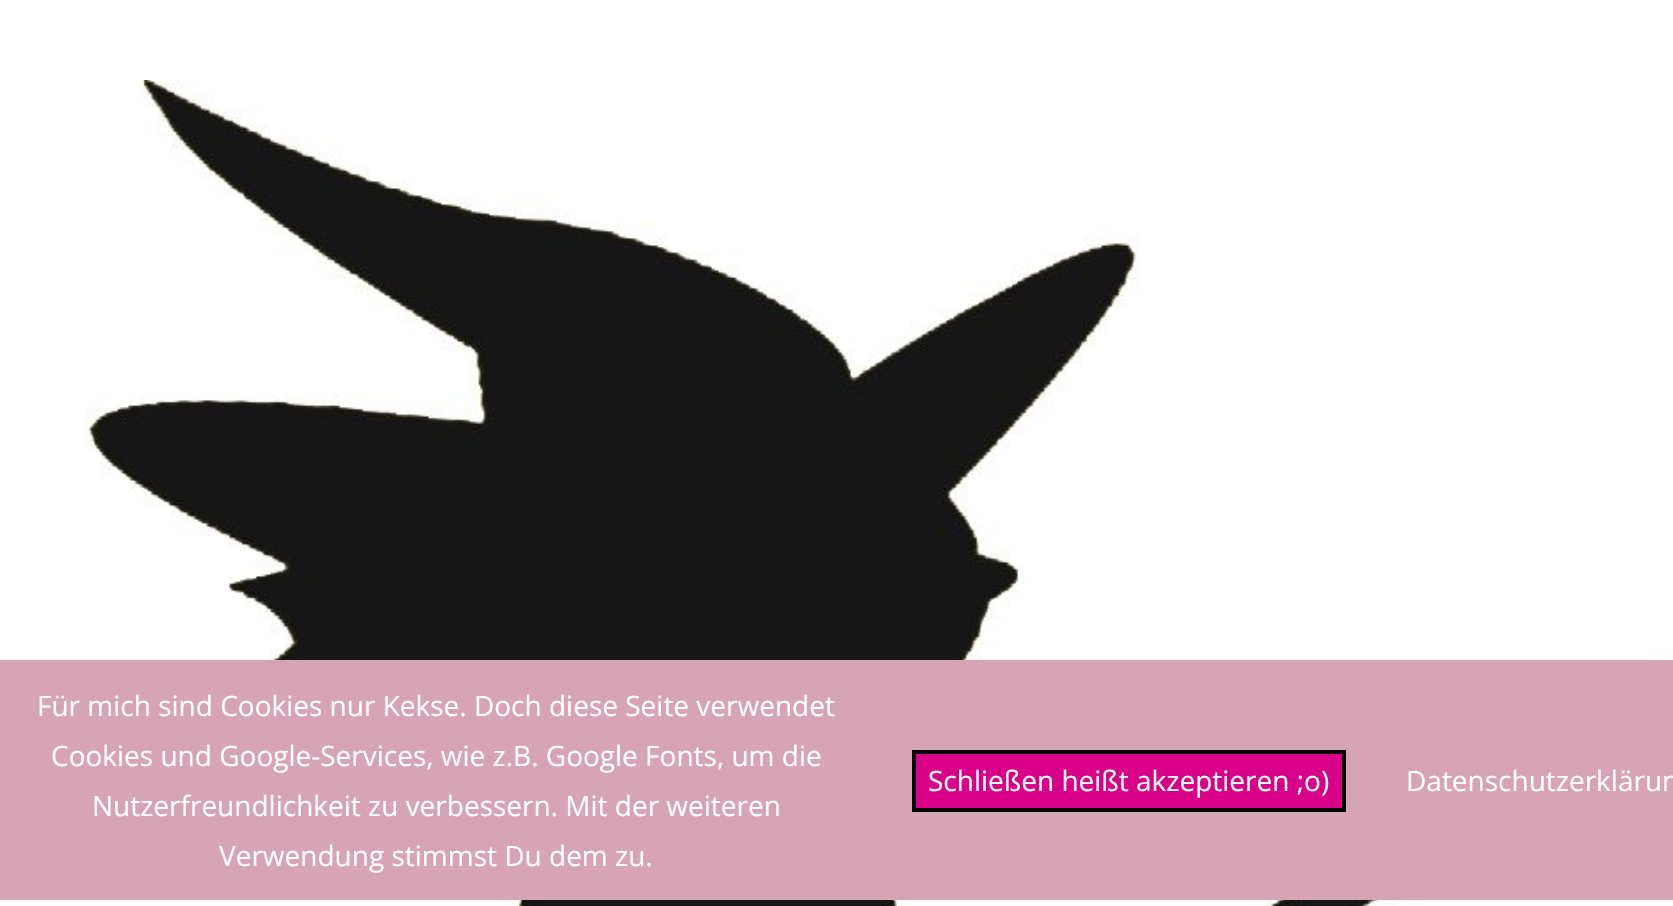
void draw(SkCanvas* canvas) {
    SkPaint paint;
    paint.setAntiAlias(true);
    canvas->clear(0xFFFFFFFF);
    canvas->drawImageRect(SkImages::DeferredFromEncodedData(SkData::MakeFromFileName("img1.png")), SkRect::MakeXYWH(85, 80, 1588, 826), SkSamplingOptions());
    paint.setColor(0xFFD6A4B5);
    canvas->drawRect(SkRect::MakeXYWH(0, 660, 1673, 240), paint);
    SkFont font1(fontMgr->matchFamilyStyle("Open Sans", SkFontStyle::Normal()), 28);
    font1.setSubpixel(true);
    paint.setColor(0xFFFFFFFF);
    canvas->drawString("Für mich sind Cookies nur Kekse. Doch diese Seite verwendet", 37, 716, font1, paint);
    canvas->drawString("Cookies und Google-Services, wie z.B. Google Fonts, um die", 51, 766, font1, paint);
    canvas->drawString("Nutzerfreundlichkeit zu verbessern. Mit der weiteren", 92, 816, font1, paint);
    canvas->drawString("Verwendung stimmst Du dem zu.", 219, 866, font1, paint);
    paint.setColor(0xFFD80089);
    canvas->drawRect(SkRect::MakeXYWH(914, 752, 430, 58), paint);
    paint.setStyle(SkPaint::kStroke_Style);
    paint.setStrokeWidth(4);
    paint.setColor(0xFF000000);
    canvas->drawRect(SkRect::MakeXYWH(914, 752, 430, 58), paint);
    paint.setStyle(SkPaint::kFill_Style);
    paint.setColor(0xFFFFFFFF);
    canvas->drawString("Schließen heißt akzeptieren ;o)", 928, 791, font1, paint);
    canvas->drawString("Datenschutzerklärun", 1406, 791, font1, paint);
}
